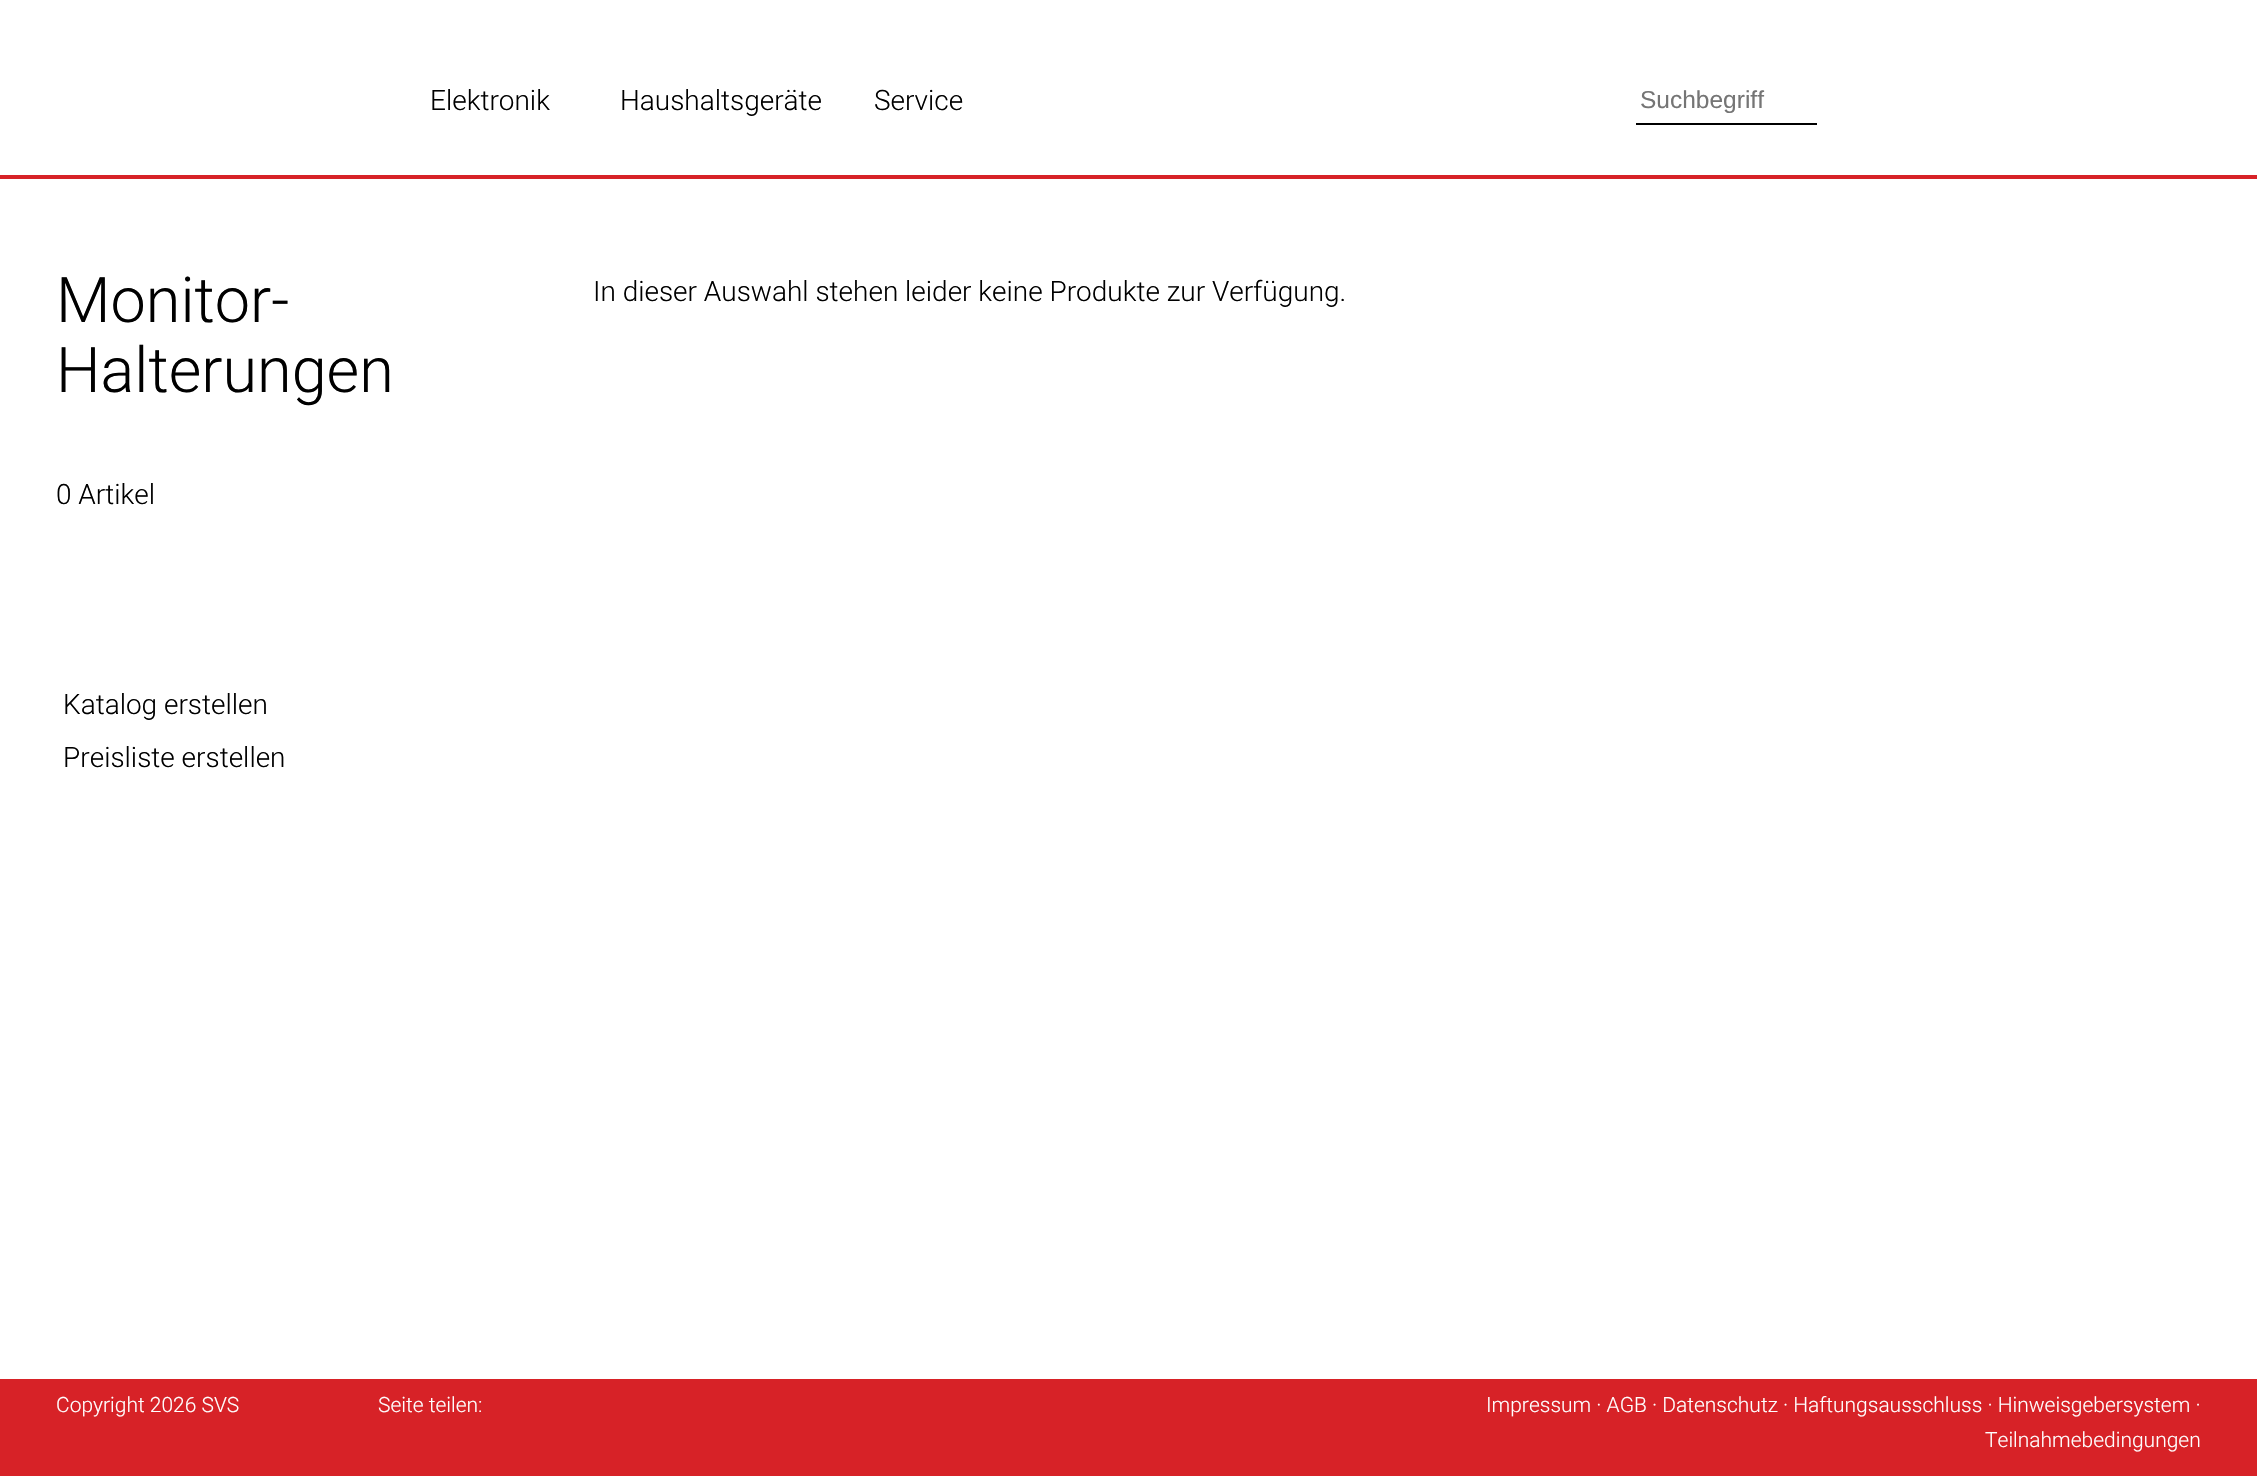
void draw(SkCanvas* canvas) {
    SkPaint paint;
    paint.setAntiAlias(true);
    canvas->clear(0xFFFFFFFF);
    paint.setColor(0xFFD72227);
    canvas->drawRect(SkRect::MakeXYWH(0, 175, 2257, 4), paint);
    SkFont font1(fontMgr->matchFamilyStyle("Roboto", SkFontStyle(300, SkFontStyle::kNormal_Width, SkFontStyle::kUpright_Slant)), 28);
    font1.setSubpixel(true);
    paint.setColor(0xFF000000);
    canvas->drawString("Elektronik", 430, 110, font1, paint);
    canvas->drawString("Haushaltsgeräte", 620, 110, font1, paint);
    canvas->drawString("Service", 874, 110, font1, paint);
    canvas->drawRect(SkRect::MakeXYWH(1636, 123, 181, 2), paint);
    SkFont font2(fontMgr->matchFamilyStyle("Liberation Sans", SkFontStyle::Normal()), 24.5f);
    font2.setSubpixel(true);
    paint.setColor(0xFF757575);
    canvas->drawString("Suchbegriff", 1640, 108, font2, paint);
    SkFont font3(fontMgr->matchFamilyStyle("Roboto", SkFontStyle(300, SkFontStyle::kNormal_Width, SkFontStyle::kUpright_Slant)), 63);
    font3.setSubpixel(true);
    paint.setColor(0xFF000000);
    canvas->drawString("Monitor-", 56, 322, font3, paint);
    canvas->drawString("Halterungen", 56, 392, font3, paint);
    canvas->drawString("0 Artikel", 56, 504, font1, paint);
    canvas->drawString("Katalog erstellen", 63, 714, font1, paint);
    canvas->drawString("Preisliste erstellen", 63, 767, font1, paint);
    canvas->drawString("In dieser Auswahl stehen leider keine Produkte zur Verfügung.", 593, 301, font1, paint);
    paint.setColor(0xFFD72227);
    canvas->drawRect(SkRect::MakeXYWH(0, 1379, 2257, 97), paint);
    SkFont font4(fontMgr->matchFamilyStyle("Roboto", SkFontStyle(300, SkFontStyle::kNormal_Width, SkFontStyle::kUpright_Slant)), 21);
    font4.setSubpixel(true);
    paint.setColor(0xFFFFFFFF);
    canvas->drawString("Copyright 2026 SVS", 56, 1412, font4, paint);
    canvas->drawString("Seite teilen:", 378, 1412, font4, paint);
    canvas->drawString("Impressum · AGB · Datenschutz · Haftungsausschluss · Hinweisgebersystem ·", 1486, 1412, font4, paint);
    canvas->drawString("Teilnahmebedingungen", 1985, 1447, font4, paint);
}
